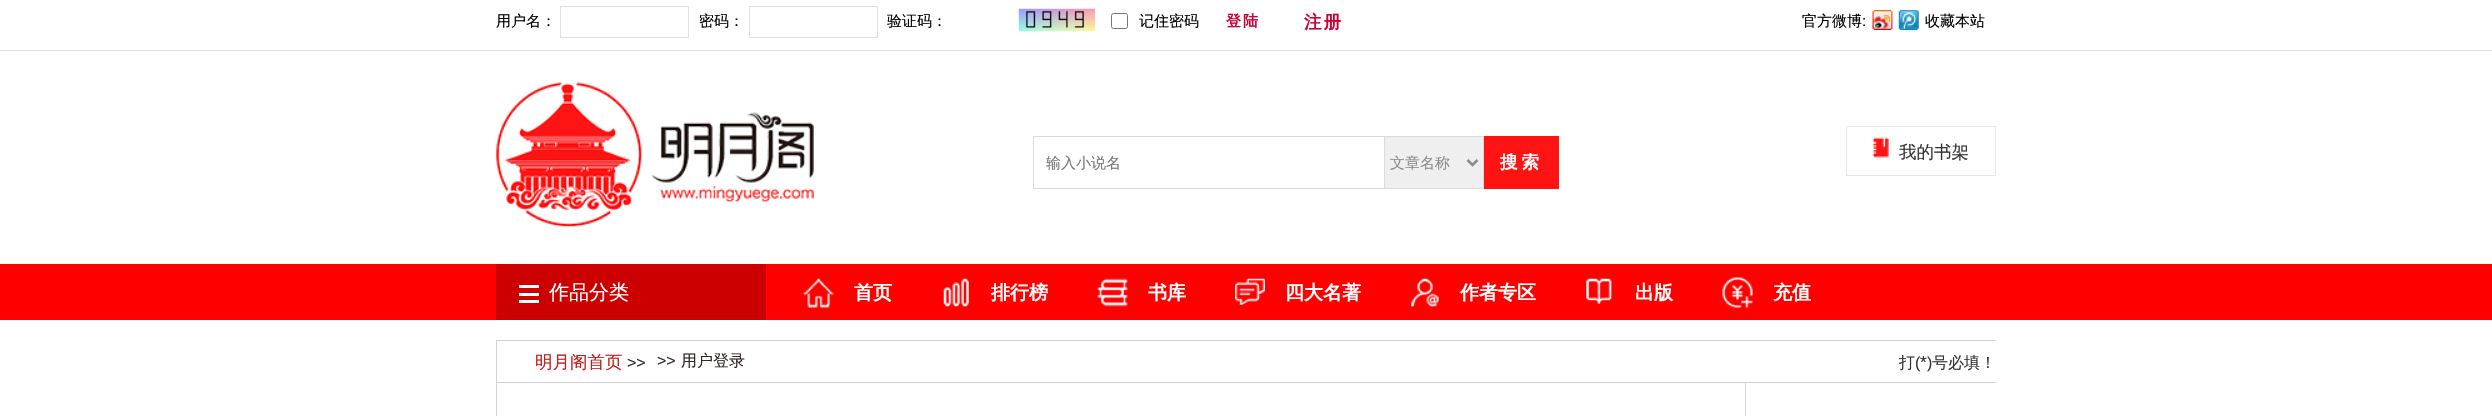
void draw(SkCanvas* canvas) {
    SkPaint paint;
    paint.setAntiAlias(true);
    auto spacedText = [&](const char* s, float x, float y, const SkFont& font, const SkPaint& ink, float letter, float word) {
        std::vector<SkGlyphID> glyphs(font.countText(s, strlen(s), SkTextEncoding::kUTF8));
        std::vector<float> xs(glyphs.size());
        font.textToGlyphs(s, strlen(s), SkTextEncoding::kUTF8, glyphs);
        font.getXPos(glyphs, xs, x);
        float extra = 0;
        for (size_t i = 0; i < glyphs.size(); i++) {
            xs[i] += extra;
            extra += letter + word * (glyphs[i] == font.unicharToGlyph(' '));
        }
        canvas->drawTextBlob(SkTextBlob::MakeFromPosHGlyphs(glyphs, xs, y, font), 0, 0, ink);
    };
    canvas->clear(0xFFFFFFFF);
    paint.setColor(0xFFE0E0E0);
    canvas->drawRect(SkRect::MakeXYWH(0, 50, 2492, 1), paint);
    SkFont font1(fontMgr->matchFamilyStyle("WenQuanYi Zen Hei", SkFontStyle(500, SkFontStyle::kNormal_Width, SkFontStyle::kUpright_Slant)), 15);
    font1.setSubpixel(true);
    paint.setColor(0xFF000000);
    canvas->drawString("用户名：", 496, 26, font1, paint);
    paint.setStyle(SkPaint::kStroke_Style);
    paint.setStrokeWidth(1);
    paint.setColor(0xFFE0E0E0);
    canvas->drawRect(SkRect::MakeXYWH(560.5f, 6.5f, 128, 31), paint);
    paint.setStyle(SkPaint::kFill_Style);
    paint.setColor(0xFF000000);
    canvas->drawString("密码：", 699, 26, font1, paint);
    paint.setStyle(SkPaint::kStroke_Style);
    paint.setColor(0xFFE0E0E0);
    canvas->drawRect(SkRect::MakeXYWH(749.5f, 6.5f, 128, 31), paint);
    paint.setStyle(SkPaint::kFill_Style);
    paint.setColor(0xFF000000);
    canvas->drawString("验证码：", 887, 26, font1, paint);
    canvas->drawImageRect(SkImages::DeferredFromEncodedData(SkData::MakeFromFileName("img1.png")), SkRect::MakeXYWH(1018, 8, 77, 24), SkSamplingOptions());
    paint.setStyle(SkPaint::kStroke_Style);
    paint.setColor(0xFF767676);
    canvas->drawRoundRect(SkRect::MakeXYWH(1111.5f, 13.5f, 16, 15), 2, 2, paint);
    paint.setStyle(SkPaint::kFill_Style);
    paint.setColor(0xFF000000);
    canvas->drawString("记住密码", 1139, 26, font1, paint);
    SkFont font2(fontMgr->matchFamilyStyle("WenQuanYi Zen Hei", SkFontStyle::Bold()), 15);
    font2.setSubpixel(true);
    paint.setColor(0xFFCC0033);
    spacedText("登陆", 1226, 26, font2, paint, 2, 0);
    SkFont font3(fontMgr->matchFamilyStyle("WenQuanYi Zen Hei", SkFontStyle::Bold()), 17.5f);
    font3.setSubpixel(true);
    spacedText("注册", 1304, 28, font3, paint, 2, 0);
    paint.setColor(0xFF000000);
    canvas->drawString("官方微博", 1802, 26, font1, paint);
    SkFont font4(fontMgr->matchFamilyStyle("Liberation Sans", SkFontStyle::Normal()), 15);
    font4.setSubpixel(true);
    canvas->drawString(":", 1862, 26, font4, paint);
    canvas->drawImageRect(SkImages::DeferredFromEncodedData(SkData::MakeFromFileName("img2.png")), SkRect::MakeXYWH(1872, 10, 21, 20), SkSamplingOptions());
    canvas->drawImageRect(SkImages::DeferredFromEncodedData(SkData::MakeFromFileName("img3.png")), SkRect::MakeXYWH(1898, 10, 21, 20), SkSamplingOptions());
    canvas->drawString("收藏本站", 1925, 26, font1, paint);
    canvas->drawImageRect(SkImages::DeferredFromEncodedData(SkData::MakeFromFileName("img4.png")), SkRect::MakeXYWH(496, 82, 318, 145), SkSamplingOptions());
    paint.setColor(0xFFDBDBDB);
    canvas->drawRect(SkRect::MakeXYWH(1033, 136, 351, 1), paint);
    canvas->drawRect(SkRect::MakeXYWH(1033, 188, 351, 1), paint);
    canvas->drawRect(SkRect::MakeXYWH(1033, 136, 1, 53), paint);
    paint.setColor(0xFF757575);
    canvas->drawString("输入小说名", 1046, 168, font1, paint);
    paint.setColor(0xFFEFEFEF);
    canvas->drawRect(SkRect::MakeXYWH(1384.5f, 136.5f, 99, 52), paint);
    paint.setStyle(SkPaint::kStroke_Style);
    paint.setColor(0xFFDBDBDB);
    canvas->drawRect(SkRect::MakeXYWH(1384.5f, 136.5f, 99, 52), paint);
    paint.setStrokeWidth(2.5f);
    paint.setColor(0xFF8B8B8B);
    canvas->drawPath(SkPathBuilder().moveTo(1467.5f, 160).lineTo(1472.5f, 165).lineTo(1477.5f, 160).detach(), paint);
    paint.setStyle(SkPaint::kFill_Style);
    canvas->drawString("文章名称", 1390, 168, font1, paint);
    paint.setColor(0xFFFF1414);
    canvas->drawRect(SkRect::MakeXYWH(1484, 136, 75, 53), paint);
    paint.setColor(0xFFFFFFFF);
    spacedText("搜索", 1500, 168, font3, paint, 4, 0);
    paint.setStyle(SkPaint::kStroke_Style);
    paint.setStrokeWidth(1);
    paint.setColor(0xFFE6E6E6);
    canvas->drawRect(SkRect::MakeXYWH(1846.5f, 126.5f, 149, 49), paint);
    canvas->drawImageRect(SkImages::DeferredFromEncodedData(SkData::MakeFromFileName("img5.png")), SkRect::MakeXYWH(1872, 137, 17, 21), SkSamplingOptions());
    SkFont font5(fontMgr->matchFamilyStyle("WenQuanYi Zen Hei", SkFontStyle(500, SkFontStyle::kNormal_Width, SkFontStyle::kUpright_Slant)), 17.5f);
    font5.setSubpixel(true);
    paint.setStyle(SkPaint::kFill_Style);
    paint.setColor(0xFF333333);
    canvas->drawString("我的书架", 1899, 158, font5, paint);
    paint.setColor(0xFFFF0000);
    canvas->drawRect(SkRect::MakeXYWH(0, 264, 2492, 56), paint);
    paint.setColor(0xFFCC0000);
    canvas->drawRect(SkRect::MakeXYWH(496, 264, 270, 56), paint);
    paint.setColor(0xFFFFFFFF);
    canvas->drawRect(SkRect::MakeXYWH(519, 285, 20, 3), paint);
    canvas->drawRect(SkRect::MakeXYWH(519, 293, 20, 3), paint);
    canvas->drawRect(SkRect::MakeXYWH(519, 300, 20, 3), paint);
    SkFont font6(fontMgr->matchFamilyStyle("WenQuanYi Zen Hei", SkFontStyle(500, SkFontStyle::kNormal_Width, SkFontStyle::kUpright_Slant)), 20);
    font6.setSubpixel(true);
    canvas->drawString("作品分类", 549, 299, font6, paint);
    canvas->drawImageRect(SkImages::DeferredFromEncodedData(SkData::MakeFromFileName("img6.png")), SkRect::MakeXYWH(803, 278, 31, 30), SkSamplingOptions());
    SkFont font7(fontMgr->matchFamilyStyle("WenQuanYi Zen Hei", SkFontStyle::Bold()), 19);
    font7.setSubpixel(true);
    canvas->drawString("首页", 854, 299, font7, paint);
    canvas->drawImageRect(SkImages::DeferredFromEncodedData(SkData::MakeFromFileName("img7.png")), SkRect::MakeXYWH(943, 278, 26, 29), SkSamplingOptions());
    canvas->drawString("排行榜", 991, 299, font7, paint);
    canvas->drawImageRect(SkImages::DeferredFromEncodedData(SkData::MakeFromFileName("img8.png")), SkRect::MakeXYWH(1097, 278, 31, 29), SkSamplingOptions());
    canvas->drawString("书库", 1148, 299, font7, paint);
    canvas->drawImageRect(SkImages::DeferredFromEncodedData(SkData::MakeFromFileName("img9.png")), SkRect::MakeXYWH(1235, 278, 30, 27), SkSamplingOptions());
    canvas->drawString("四大名著", 1285, 299, font7, paint);
    canvas->drawImageRect(SkImages::DeferredFromEncodedData(SkData::MakeFromFileName("img10.png")), SkRect::MakeXYWH(1411, 278, 28, 29), SkSamplingOptions());
    canvas->drawString("作者专区", 1460, 299, font7, paint);
    canvas->drawImageRect(SkImages::DeferredFromEncodedData(SkData::MakeFromFileName("img11.png")), SkRect::MakeXYWH(1586, 278, 26, 26), SkSamplingOptions());
    canvas->drawString("出版", 1635, 299, font7, paint);
    canvas->drawImageRect(SkImages::DeferredFromEncodedData(SkData::MakeFromFileName("img12.png")), SkRect::MakeXYWH(1722, 277, 31, 31), SkSamplingOptions());
    canvas->drawString("充值", 1773, 299, font7, paint);
    canvas->save();
    canvas->clipRect(SkRect::MakeXYWH(496, 333, 1500, 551));
    paint.setStyle(SkPaint::kStroke_Style);
    paint.setColor(0xFFD3D3D3);
    canvas->drawRect(SkRect::MakeXYWH(496.5f, 340.5f, 1502, 42), paint);
    canvas->restore();
    paint.setStyle(SkPaint::kFill_Style);
    paint.setColor(0xFFC71B1B);
    canvas->drawString("明月阁首页", 535, 368, font5, paint);
    SkFont font8(fontMgr->matchFamilyStyle("Liberation Sans", SkFontStyle::Normal()), 16);
    font8.setSubpixel(true);
    paint.setColor(0xFF2E2725);
    canvas->drawString(">>", 627, 368, font8, paint);
    canvas->drawString(">>", 657, 366, font8, paint);
    SkFont font9(fontMgr->matchFamilyStyle("WenQuanYi Zen Hei", SkFontStyle(500, SkFontStyle::kNormal_Width, SkFontStyle::kUpright_Slant)), 16);
    font9.setSubpixel(true);
    canvas->drawString("用户登录", 681, 366, font9, paint);
    paint.setColor(0xFF333333);
    canvas->drawString("打", 1899, 368, font9, paint);
    canvas->drawString("(", 1915, 368, font8, paint);
    SkFont font10(fontMgr->matchFamilyStyle("Liberation Sans", SkFontStyle::Normal()), 17.5f);
    font10.setSubpixel(true);
    canvas->drawString("*", 1920, 368, font10, paint);
    canvas->drawString(")", 1927, 368, font8, paint);
    canvas->drawString("号必填！", 1932, 368, font9, paint);
    paint.setColor(0xFFD3D3D3);
    canvas->drawRect(SkRect::MakeXYWH(1745, 383, 1, 33), paint);
    canvas->drawRect(SkRect::MakeXYWH(496, 383, 1, 33), paint);
}
